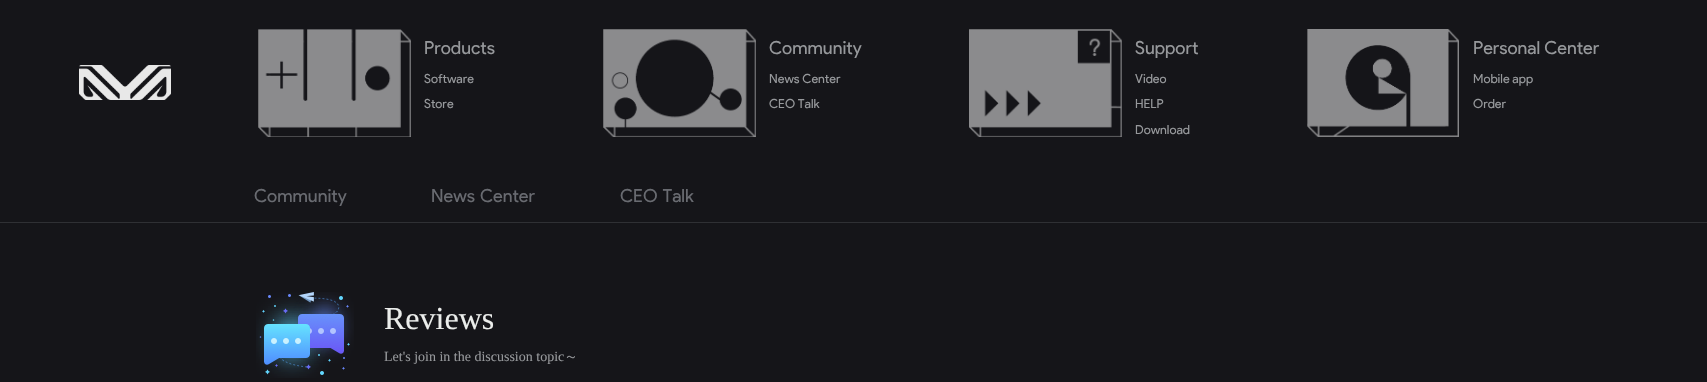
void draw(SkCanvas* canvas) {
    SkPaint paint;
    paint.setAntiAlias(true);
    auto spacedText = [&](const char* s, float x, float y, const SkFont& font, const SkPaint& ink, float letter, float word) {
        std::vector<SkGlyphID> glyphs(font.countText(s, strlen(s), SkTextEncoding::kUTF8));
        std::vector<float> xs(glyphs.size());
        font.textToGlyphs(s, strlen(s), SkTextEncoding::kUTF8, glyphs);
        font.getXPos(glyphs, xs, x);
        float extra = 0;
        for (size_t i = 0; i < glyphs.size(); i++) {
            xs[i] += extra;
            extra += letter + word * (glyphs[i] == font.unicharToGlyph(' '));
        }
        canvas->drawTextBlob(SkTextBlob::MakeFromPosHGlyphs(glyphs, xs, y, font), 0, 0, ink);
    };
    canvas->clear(0xFF151519);
    canvas->drawImageRect(SkImages::DeferredFromEncodedData(SkData::MakeFromFileName("img1.png")), SkRect::MakeXYWH(79, 65, 92, 35), SkSamplingOptions());
    canvas->drawImageRect(SkImages::DeferredFromEncodedData(SkData::MakeFromFileName("img2.png")), SkRect::MakeXYWH(258, 29, 153, 108), SkSamplingOptions());
    SkFont font1(fontMgr->matchFamilyStyle("Product Sans", SkFontStyle::Normal()), 18);
    font1.setSubpixel(true);
    paint.setColor(0xFF96989B);
    canvas->drawString("Products", 424, 54, font1, paint);
    SkFont font2(fontMgr->matchFamilyStyle("Product Sans", SkFontStyle::Normal()), 12.5f);
    font2.setSubpixel(true);
    canvas->drawString("Software", 424, 83, font2, paint);
    canvas->drawString("Store", 424, 108, font2, paint);
    canvas->drawImageRect(SkImages::DeferredFromEncodedData(SkData::MakeFromFileName("img3.png")), SkRect::MakeXYWH(603, 29, 153, 108), SkSamplingOptions());
    canvas->drawString("Community", 769, 54, font1, paint);
    canvas->drawString("News Center", 769, 83, font2, paint);
    canvas->drawString("CEO Talk", 769, 108, font2, paint);
    canvas->drawImageRect(SkImages::DeferredFromEncodedData(SkData::MakeFromFileName("img4.png")), SkRect::MakeXYWH(969, 29, 153, 108), SkSamplingOptions());
    canvas->drawString("Support", 1135, 54, font1, paint);
    canvas->drawString("Video", 1135, 83, font2, paint);
    canvas->drawString("HELP", 1135, 108, font2, paint);
    canvas->drawString("Download", 1135, 134, font2, paint);
    canvas->drawImageRect(SkImages::DeferredFromEncodedData(SkData::MakeFromFileName("img5.png")), SkRect::MakeXYWH(1307, 29, 152, 108), SkSamplingOptions());
    canvas->drawString("Personal Center", 1473, 54, font1, paint);
    canvas->drawString("Mobile app", 1473, 83, font2, paint);
    canvas->drawString("Order", 1473, 108, font2, paint);
    paint.setColor(0xFF2F3034);
    canvas->drawRect(SkRect::MakeXYWH(0, 222, 1707, 1), paint);
    paint.setColor(0xFF696B71);
    canvas->drawString("Community", 254, 202, font1, paint);
    spacedText("News Center", 431, 202, font1, paint, 0, 1);
    spacedText("CEO Talk", 620, 202, font1, paint, 0, 1);
    canvas->drawImageRect(SkImages::DeferredFromEncodedData(SkData::MakeFromFileName("img6.png")), SkRect::MakeXYWH(256, 292, 98, 86), SkSamplingOptions());
    SkFont font3(fontMgr->matchFamilyStyle("Liberation Serif", SkFontStyle::Normal()), 32);
    font3.setSubpixel(true);
    paint.setColor(0xFFEBEDEB);
    canvas->drawString("Reviews", 384, 329, font3, paint);
    SkFont font4(fontMgr->matchFamilyStyle("Liberation Serif", SkFontStyle::Normal()), 14);
    font4.setSubpixel(true);
    paint.setColor(0xFF96989B);
    canvas->drawString("Let's join in the discussion topic", 384, 361, font4, paint);
    SkFont font5(fontMgr->matchFamilyStyle("WenQuanYi Zen Hei", SkFontStyle(500, SkFontStyle::kNormal_Width, SkFontStyle::kUpright_Slant)), 14);
    font5.setSubpixel(true);
    canvas->drawString("～", 564, 361, font5, paint);
}
